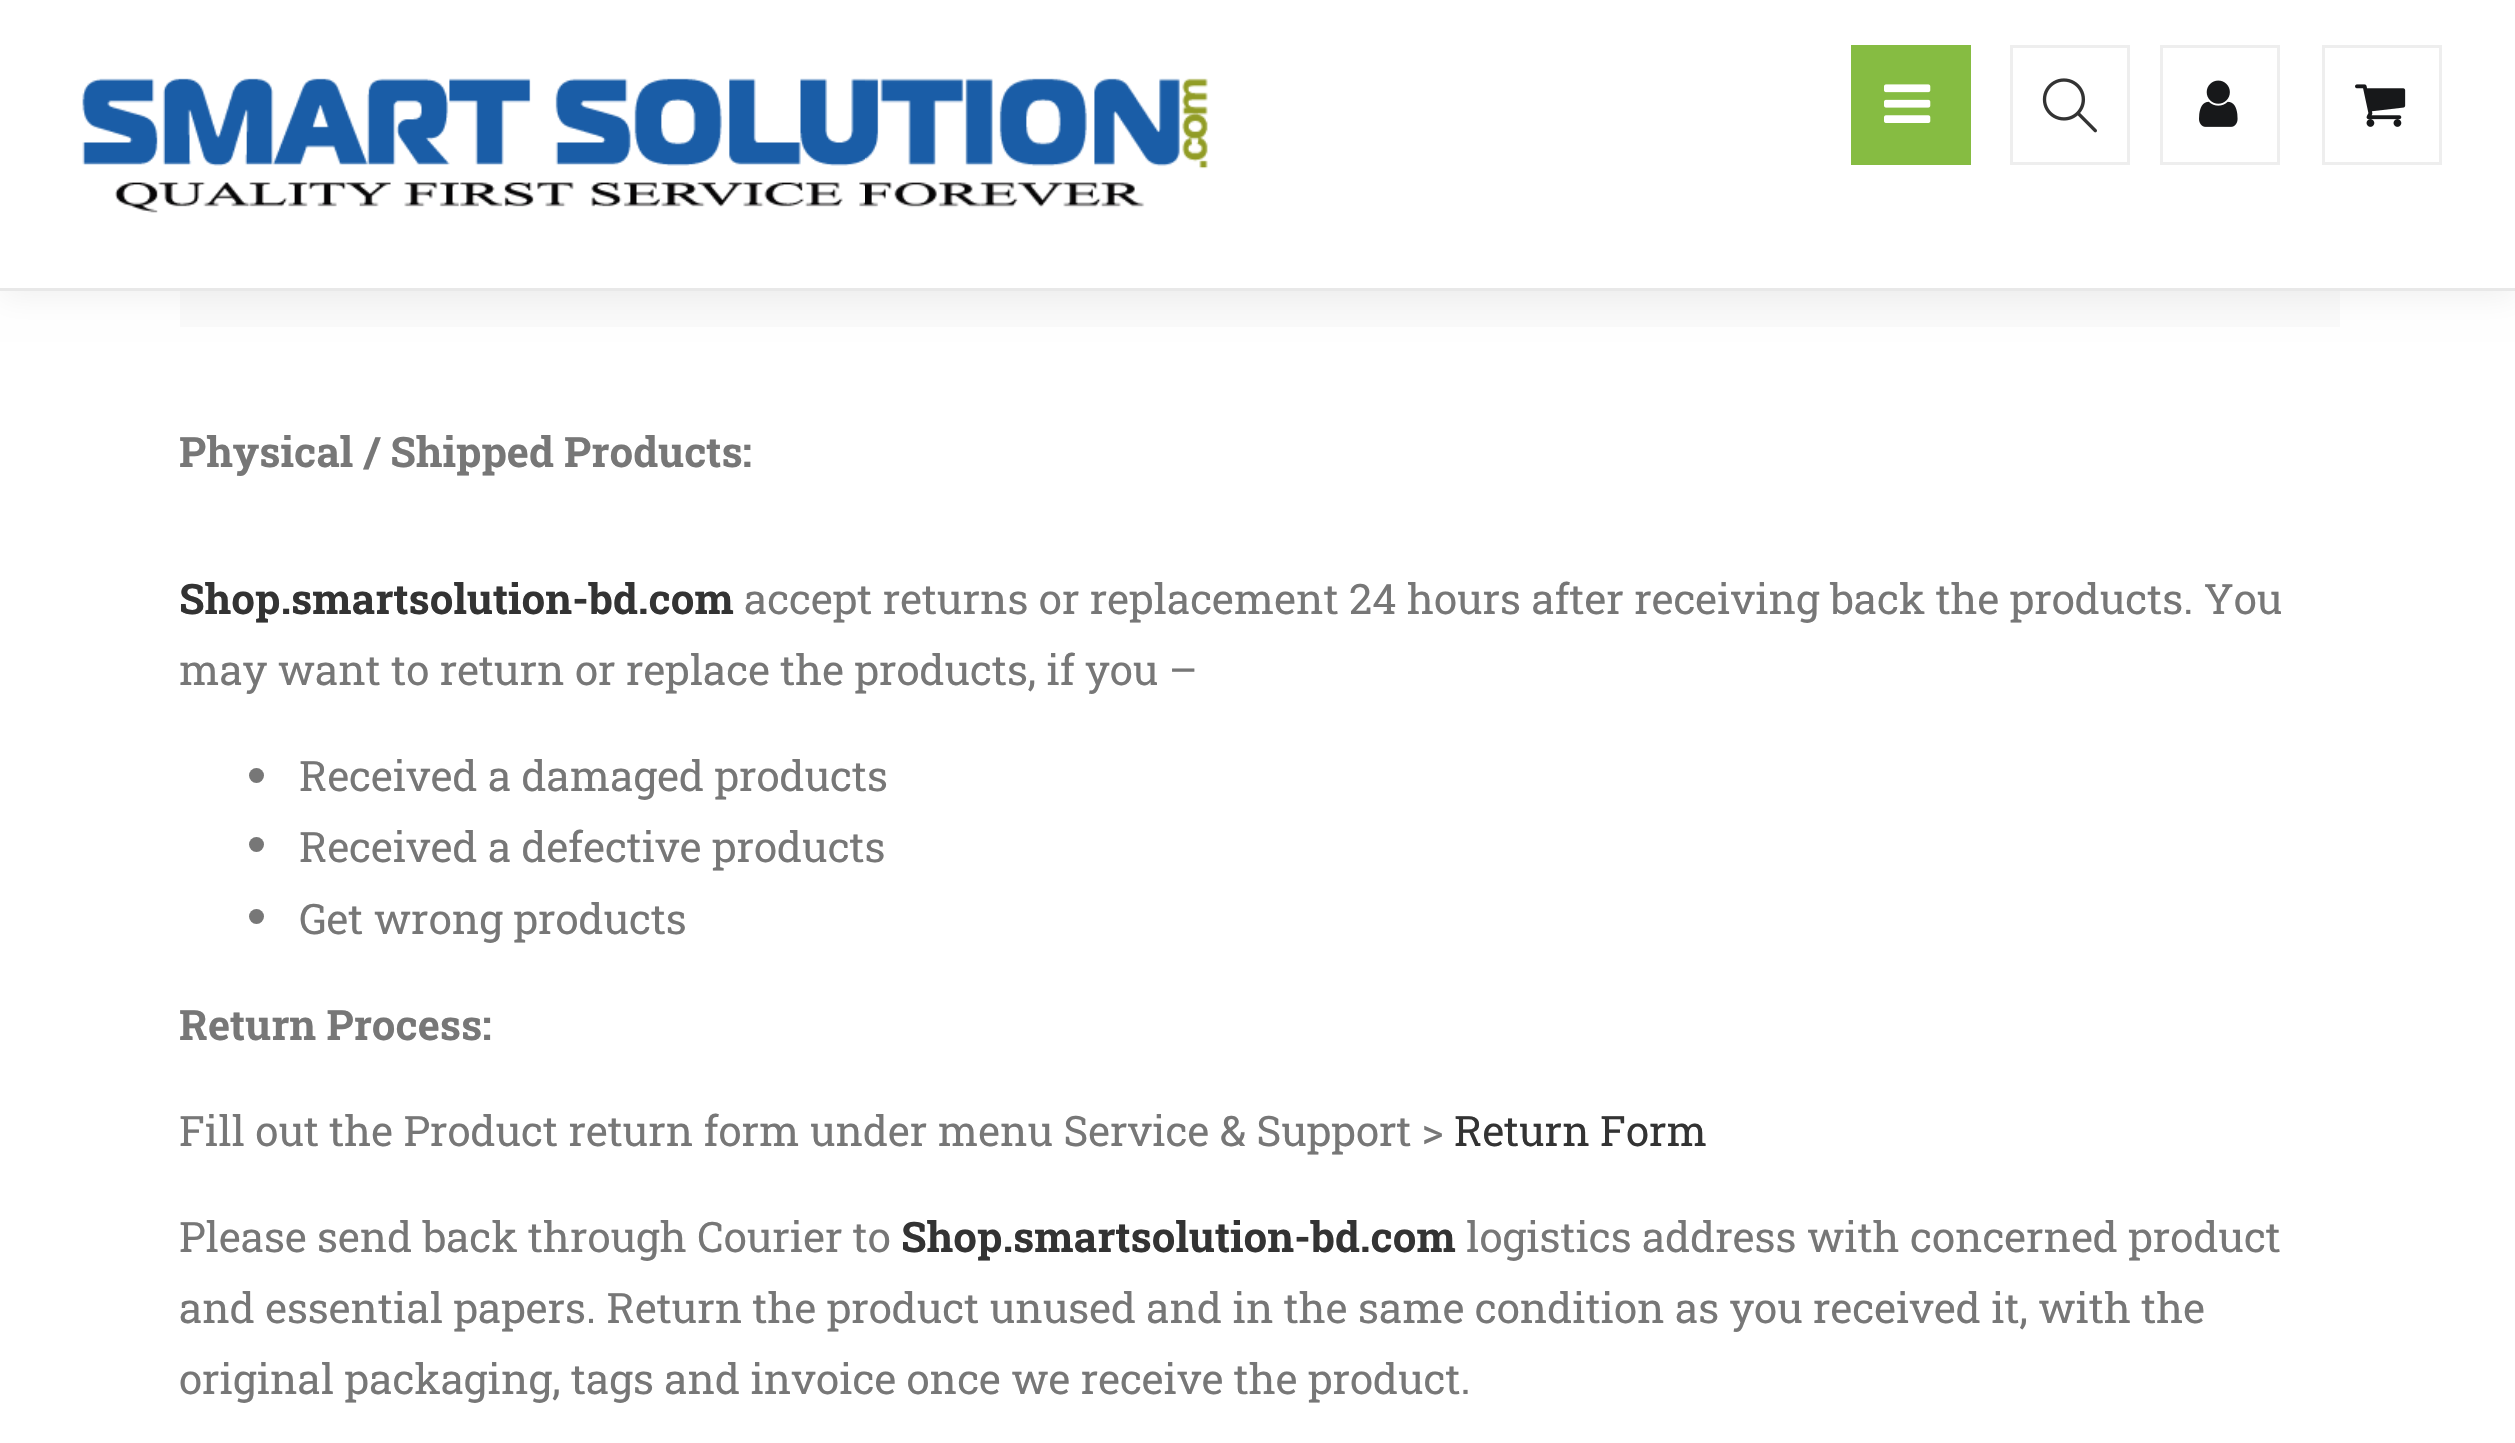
void draw(SkCanvas* canvas) {
    SkPaint paint;
    paint.setAntiAlias(true);
    canvas->clear(0xFFFFFFFF);
    paint.setColor(0xFFFAFAFA);
    canvas->drawRect(SkRect::MakeXYWH(180, 291, 2160, 36), paint);
    paint.setColor(0x0F000000);
    paint.setMaskFilter(SkMaskFilter::MakeBlur(kNormal_SkBlurStyle, 15));
    canvas->drawRect(SkRect::MakeXYWH(0, 6, 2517, 291), paint);
    paint.setMaskFilter(nullptr);
    paint.setColor(0xFFFFFFFF);
    canvas->drawRect(SkRect::MakeXYWH(0, 0, 2515, 288), paint);
    paint.setColor(0xFFE8E8E8);
    canvas->drawRect(SkRect::MakeXYWH(0, 288, 2515, 3), paint);
    canvas->drawImageRect(SkImages::DeferredFromEncodedData(SkData::MakeFromFileName("img1.png")), SkRect::MakeXYWH(82, 78, 1126, 135), SkSamplingOptions());
    paint.setColor(0xFF86BC42);
    canvas->drawRect(SkRect::MakeXYWH(1851, 45, 120, 120), paint);
    canvas->drawImageRect(SkImages::DeferredFromEncodedData(SkData::MakeFromFileName("img2.png")), SkRect::MakeXYWH(1884, 84, 47, 39), SkSamplingOptions());
    paint.setStyle(SkPaint::kStroke_Style);
    paint.setStrokeWidth(3);
    paint.setColor(0xFFEEEEEE);
    canvas->drawRect(SkRect::MakeXYWH(2011.5f, 46.5f, 117, 117), paint);
    canvas->drawImageRect(SkImages::DeferredFromEncodedData(SkData::MakeFromFileName("img3.png")), SkRect::MakeXYWH(2042, 78, 55, 55), SkSamplingOptions());
    canvas->drawRect(SkRect::MakeXYWH(2161.5f, 46.5f, 117, 117), paint);
    canvas->drawImageRect(SkImages::DeferredFromEncodedData(SkData::MakeFromFileName("img4.png")), SkRect::MakeXYWH(2199, 80, 39, 47), SkSamplingOptions());
    canvas->drawRect(SkRect::MakeXYWH(2323.5f, 46.5f, 117, 117), paint);
    canvas->drawImageRect(SkImages::DeferredFromEncodedData(SkData::MakeFromFileName("img5.png")), SkRect::MakeXYWH(2355, 84, 51, 43), SkSamplingOptions());
    SkFont font1(fontMgr->matchFamilyStyle("Roboto Slab", SkFontStyle::Bold()), 42);
    font1.setSubpixel(true);
    paint.setStyle(SkPaint::kFill_Style);
    paint.setColor(0xFF777777);
    canvas->drawString("Physical / Shipped Products:", 179, 467, font1, paint);
    paint.setColor(0xFF333333);
    canvas->drawString("Shop.smartsolution-bd.com", 179, 614, font1, paint);
    SkFont font2(fontMgr->matchFamilyStyle("Roboto Slab", SkFontStyle::Normal()), 42);
    font2.setSubpixel(true);
    paint.setColor(0xFF777777);
    canvas->drawString("accept returns or replacement 24 hours after receiving back the products. You", 744, 614, font2, paint);
    canvas->drawString("may want to return or replace the products, if you –", 179, 685, font2, paint);
    canvas->drawCircle(256.5f, 775.5f, 7.5f, paint);
    canvas->drawString("Received a damaged products", 299, 791, font2, paint);
    canvas->drawCircle(256.5f, 844.5f, 7.5f, paint);
    canvas->drawString("Received a defective products", 299, 862, font2, paint);
    canvas->drawCircle(256.5f, 916.5f, 7.5f, paint);
    canvas->drawString("Get wrong products", 299, 934, font2, paint);
    canvas->drawString("Return Process:", 179, 1040, font1, paint);
    canvas->drawString("Fill out the Product return form under menu Service & Support >", 179, 1146, font2, paint);
    paint.setColor(0xFF333333);
    canvas->drawString("Return Form", 1454, 1146, font2, paint);
    paint.setColor(0xFF777777);
    canvas->drawString("Please send back through Courier to", 179, 1252, font2, paint);
    paint.setColor(0xFF333333);
    canvas->drawString("Shop.smartsolution-bd.com", 901, 1252, font1, paint);
    paint.setColor(0xFF777777);
    canvas->drawString("logistics address with concerned product", 1466, 1252, font2, paint);
    canvas->drawString("and essential papers. Return the product unused and in the same condition as you received it, with the", 179, 1323, font2, paint);
    canvas->drawString("original packaging, tags and invoice once we receive the product.", 179, 1394, font2, paint);
}
